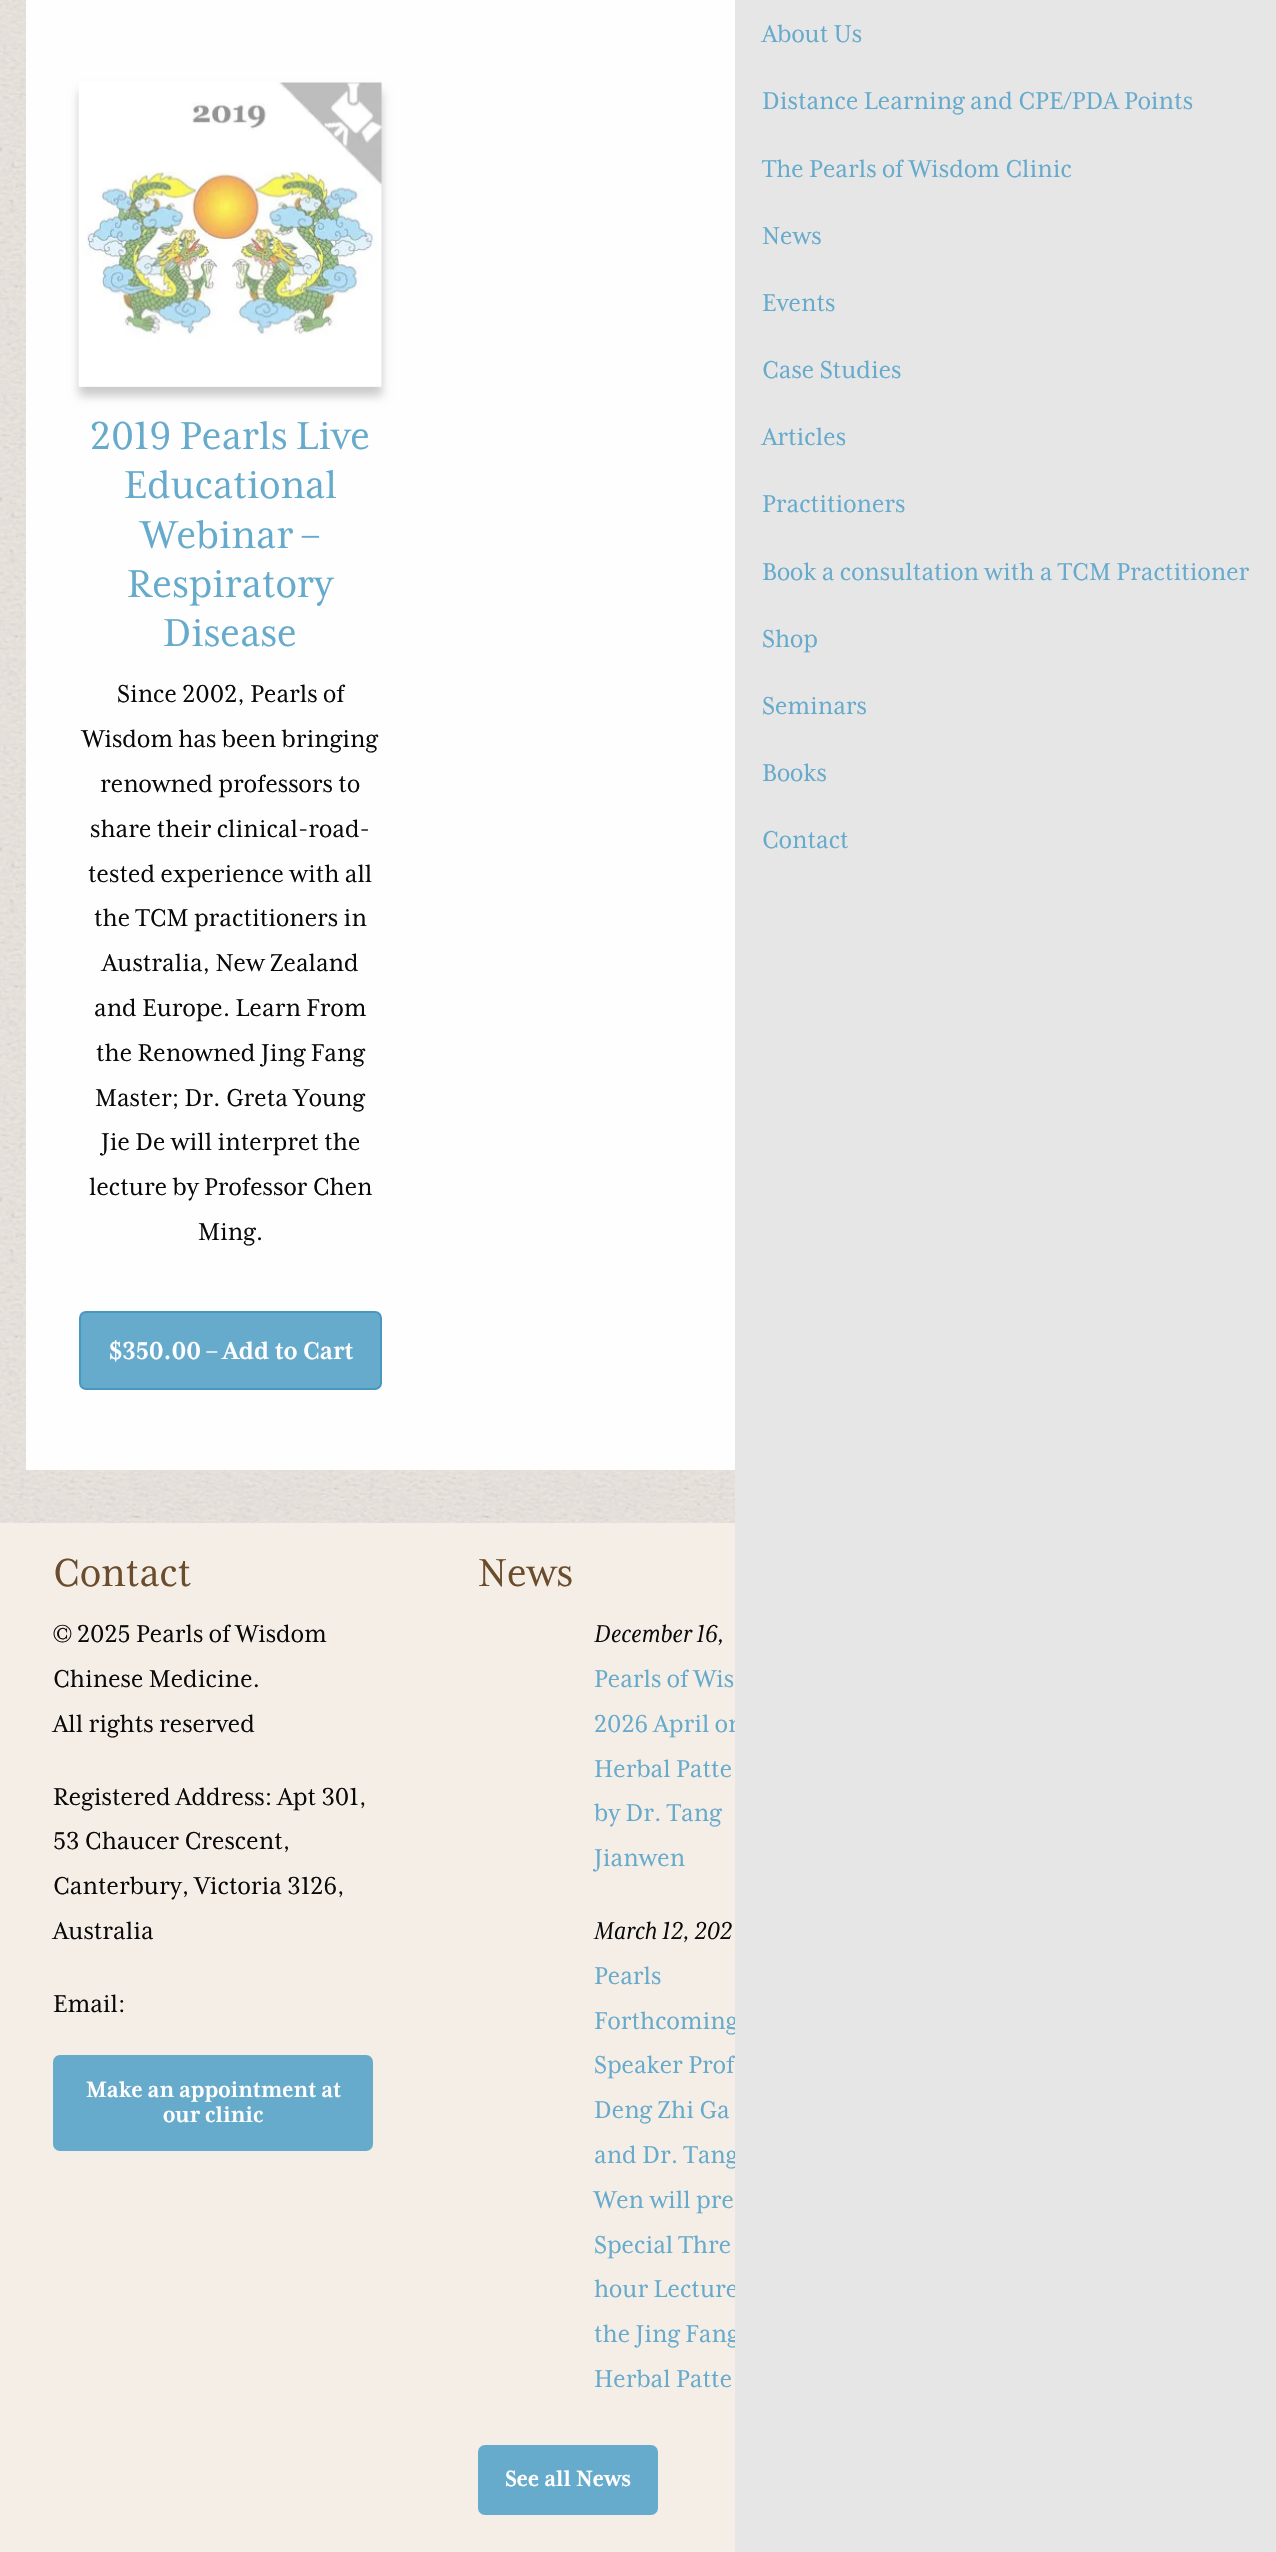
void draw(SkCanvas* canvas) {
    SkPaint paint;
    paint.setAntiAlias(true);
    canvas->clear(0xFFF5EEE7);
    canvas->drawImageRect(SkImages::DeferredFromEncodedData(SkData::MakeFromFileName("img1.png")), SkRect::MakeXYWH(0, 0, 735, 1523), SkSamplingOptions());
    paint.setColor(0xFFFEFEFE);
    canvas->drawRect(SkRect::MakeXYWH(26, 0, 709, 1470), paint);
    paint.setColor(0x33000000);
    paint.setMaskFilter(SkMaskFilter::MakeBlur(kNormal_SkBlurStyle, 4.5f));
    canvas->drawRect(SkRect::MakeXYWH(79, 91, 303, 305), paint);
    paint.setMaskFilter(nullptr);
    canvas->drawImageRect(SkImages::DeferredFromEncodedData(SkData::MakeFromFileName("img2.png")), SkRect::MakeXYWH(78, 82, 304, 305), SkSamplingOptions());
    SkFont font1(fontMgr->matchFamilyStyle("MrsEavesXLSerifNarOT", SkFontStyle::Normal()), 44.75f);
    font1.setSubpixel(true);
    paint.setColor(0xFF66AACC);
    canvas->drawString("2019 Pearls Live", 90, 449, font1, paint);
    canvas->drawString("Educational", 124, 498, font1, paint);
    canvas->drawString("Webinar –", 141, 548, font1, paint);
    canvas->drawString("Respiratory", 127, 597, font1, paint);
    canvas->drawString("Disease", 163, 646, font1, paint);
    SkFont font2(fontMgr->matchFamilyStyle("MrsEavesXLSerifNarOT", SkFontStyle::Normal()), 28);
    font2.setSubpixel(true);
    paint.setColor(0xFF0A0A0A);
    canvas->drawString("Since 2002, Pearls of", 117, 702, font2, paint);
    canvas->drawString("Wisdom has been bringing", 82, 747, font2, paint);
    canvas->drawString("renowned professors to", 100, 792, font2, paint);
    canvas->drawString("share their clinical-road-", 90, 837, font2, paint);
    canvas->drawString("tested experience with all", 88, 882, font2, paint);
    canvas->drawString("the TCM practitioners in", 94, 926, font2, paint);
    canvas->drawString("Australia, New Zealand", 102, 971, font2, paint);
    canvas->drawString("and Europe. Learn From", 94, 1016, font2, paint);
    canvas->drawString("the Renowned Jing Fang", 96, 1061, font2, paint);
    canvas->drawString("Master; Dr. Greta Young", 95, 1106, font2, paint);
    canvas->drawString("Jie De will interpret the", 101, 1150, font2, paint);
    canvas->drawString("lecture by Professor Chen", 89, 1195, font2, paint);
    canvas->drawString("Ming.", 198, 1240, font2, paint);
    paint.setColor(0xFF66AACC);
    canvas->drawRoundRect(SkRect::MakeXYWH(80, 1312, 301, 77), 6, 6, paint);
    paint.setStyle(SkPaint::kStroke_Style);
    paint.setStrokeWidth(2);
    paint.setColor(0xFF4698C1);
    canvas->drawRoundRect(SkRect::MakeXYWH(80, 1312, 301, 77), 6, 6, paint);
    SkFont font3(fontMgr->matchFamilyStyle("MrsEavesXLSerifNarOT", SkFontStyle::Bold()), 28);
    font3.setSubpixel(true);
    paint.setStyle(SkPaint::kFill_Style);
    paint.setColor(0xFFFEFEFE);
    canvas->drawString("$350.00 – Add to Cart", 109, 1359, font3, paint);
    paint.setColor(0xFF66AACC);
    canvas->drawString("2026 April on", 594, 1732, font2, paint);
    canvas->drawString("Forthcoming", 594, 2029, font2, paint);
    canvas->drawString("and Dr. Tang", 594, 2163, font2, paint);
    canvas->drawString("hour Lecture", 594, 2297, font2, paint);
    canvas->drawString("the Jing Fang", 594, 2342, font2, paint);
    paint.setColor(0xFFE6E6E6);
    canvas->drawRect(SkRect::MakeXYWH(735, 0, 541, 2552), paint);
    paint.setColor(0xFF66AACC);
    canvas->drawString("About Us", 762, 42, font2, paint);
    canvas->drawString("Distance Learning and CPE/PDA Points", 762, 109, font2, paint);
    canvas->drawString("The Pearls of Wisdom Clinic", 762, 177, font2, paint);
    canvas->drawString("News", 762, 244, font2, paint);
    canvas->drawString("Events", 762, 311, font2, paint);
    canvas->drawString("Case Studies", 762, 378, font2, paint);
    canvas->drawString("Articles", 762, 445, font2, paint);
    canvas->drawString("Practitioners", 762, 512, font2, paint);
    canvas->drawString("Book a consultation with a TCM Practitioner", 762, 580, font2, paint);
    canvas->drawString("Shop", 762, 647, font2, paint);
    canvas->drawString("Seminars", 762, 714, font2, paint);
    canvas->drawString("Books", 762, 781, font2, paint);
    canvas->drawString("Contact", 762, 848, font2, paint);
    paint.setColor(0xFF6B4D2E);
    canvas->drawString("Contact", 53, 1586, font1, paint);
    paint.setColor(0xFF0A0A0A);
    canvas->drawString("© 2025 Pearls of Wisdom", 53, 1642, font2, paint);
    canvas->drawString("Chinese Medicine.", 53, 1687, font2, paint);
    canvas->drawString("All rights reserved", 53, 1732, font2, paint);
    canvas->drawString("Registered Address: Apt 301,", 53, 1805, font2, paint);
    canvas->drawString("53 Chaucer Crescent,", 53, 1849, font2, paint);
    canvas->drawString("Canterbury, Victoria 3126,", 53, 1894, font2, paint);
    canvas->drawString("Australia", 53, 1939, font2, paint);
    canvas->drawString("Email:", 53, 2012, font2, paint);
    paint.setColor(0xFF66AACC);
    canvas->drawRoundRect(SkRect::MakeXYWH(53, 2055, 320, 96), 7, 7, paint);
    SkFont font4(fontMgr->matchFamilyStyle("MrsEavesXLSerifNarOT", SkFontStyle::Bold()), 25.25f);
    font4.setSubpixel(true);
    paint.setColor(0xFFFEFEFE);
    canvas->drawString("Make an appointment at", 86, 2097, font4, paint);
    canvas->drawString("our clinic", 163, 2122, font4, paint);
    paint.setColor(0xFF6B4D2E);
    canvas->drawString("News", 478, 1586, font1, paint);
    SkFont font5(fontMgr->matchFamilyStyle("MrsEavesXLSerifNarOT", SkFontStyle::Italic()), 28);
    font5.setSubpixel(true);
    paint.setColor(0xFF0A0A0A);
    canvas->drawString("December 16,", 594, 1642, font5, paint);
    paint.setColor(0xFF66AACC);
    canvas->drawString("Pearls of Wis", 594, 1687, font2, paint);
    canvas->drawString("Herbal Patte", 594, 1777, font2, paint);
    canvas->drawString("by Dr. Tang", 594, 1821, font2, paint);
    canvas->drawString("Jianwen", 594, 1866, font2, paint);
    paint.setColor(0xFF0A0A0A);
    canvas->drawString("March 12, 202", 594, 1939, font5, paint);
    paint.setColor(0xFF66AACC);
    canvas->drawString("Pearls", 594, 1984, font2, paint);
    canvas->drawString("Speaker Prof", 594, 2073, font2, paint);
    canvas->drawString("Deng Zhi Ga", 594, 2118, font2, paint);
    canvas->drawString("Wen will pre", 594, 2208, font2, paint);
    canvas->drawString("Special Thre", 594, 2253, font2, paint);
    canvas->drawString("Herbal Patte", 594, 2387, font2, paint);
    canvas->drawRoundRect(SkRect::MakeXYWH(478, 2445, 180, 70), 7, 7, paint);
    paint.setColor(0xFFFEFEFE);
    canvas->drawString("See all News", 505, 2486, font4, paint);
}
